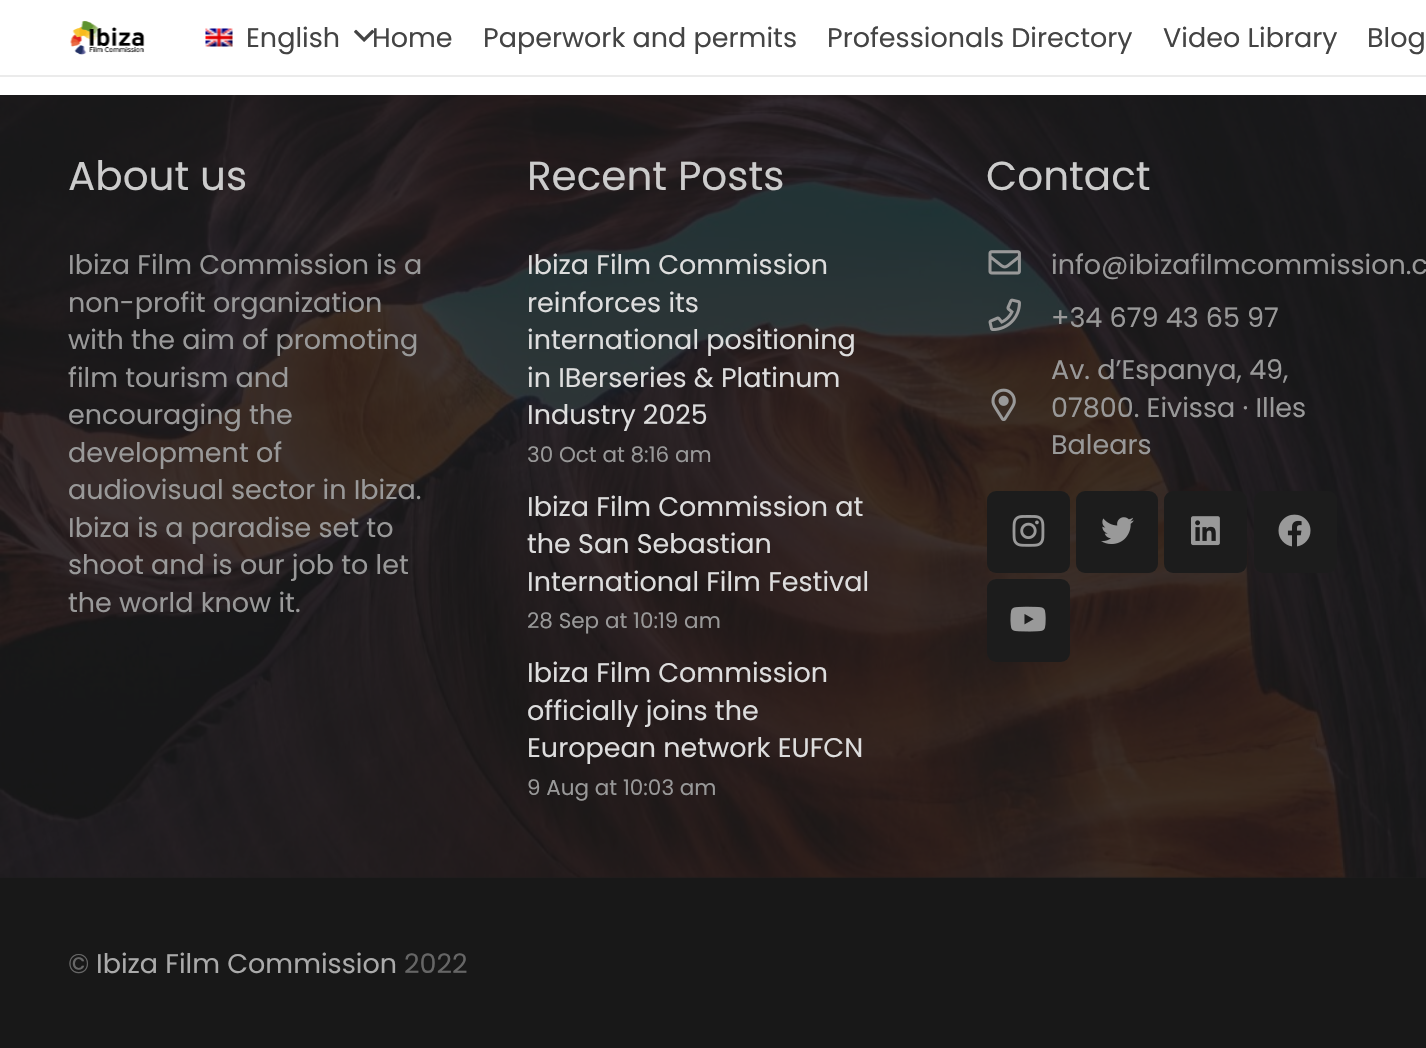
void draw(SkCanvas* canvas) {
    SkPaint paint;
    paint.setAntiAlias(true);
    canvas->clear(0xFF1C1C1C);
    paint.setColor(0xFFFFFFFF);
    canvas->drawRect(SkRect::MakeXYWH(0, 77, 1426, 18), paint);
    paint.setColor(0xFFEBEBEB);
    canvas->drawPath(SkPathBuilder().moveTo(0, 75).lineTo(0, 77).lineTo(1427, 77).lineTo(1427, 2).lineTo(1426, 2).lineTo(1426, 75).close().detach(), paint);
    paint.setColor(0xFFFFFFFF);
    canvas->drawRect(SkRect::MakeXYWH(0, 0, 1426, 75), paint);
    canvas->drawImageRect(SkImages::DeferredFromEncodedData(SkData::MakeFromFileName("img1.png")), SkRect::MakeXYWH(70, 20, 75, 35), SkSamplingOptions());
    canvas->drawImageRect(SkImages::DeferredFromEncodedData(SkData::MakeFromFileName("img2.png")), SkRect::MakeXYWH(205, 28, 28, 19), SkSamplingOptions());
    SkFont font1(fontMgr->matchFamilyStyle("Poppins", SkFontStyle::Normal()), 27);
    font1.setSubpixel(true);
    paint.setColor(0xFF444444);
    canvas->drawString("English", 246, 47, font1, paint);
    canvas->drawImageRect(SkImages::DeferredFromEncodedData(SkData::MakeFromFileName("img3.png")), SkRect::MakeXYWH(354, 29, 21, 13), SkSamplingOptions());
    canvas->drawString("Home", 372, 47, font1, paint);
    canvas->drawString("Paperwork and permits", 483, 47, font1, paint);
    canvas->drawString("Professionals Directory", 827, 47, font1, paint);
    canvas->drawString("Video Library", 1163, 47, font1, paint);
    canvas->drawString("Blog", 1367, 47, font1, paint);
    canvas->drawImageRect(SkImages::DeferredFromEncodedData(SkData::MakeFromFileName("img4.png")), SkRect::MakeXYWH(0, 95, 1426, 783), SkSamplingOptions());
    SkFont font2(fontMgr->matchFamilyStyle("Poppins", SkFontStyle::Normal()), 40.5f);
    font2.setSubpixel(true);
    paint.setColor(0xFFCCCCCC);
    canvas->drawString("About us", 68, 190, font2, paint);
    paint.setColor(0xFF999999);
    canvas->drawString("Ibiza Film Commission is a", 68, 274, font1, paint);
    canvas->drawString("non-profit organization", 68, 312, font1, paint);
    canvas->drawString("with the aim of promoting", 68, 349, font1, paint);
    canvas->drawString("film tourism and", 68, 387, font1, paint);
    canvas->drawString("encouraging the", 68, 424, font1, paint);
    canvas->drawString("development of", 68, 462, font1, paint);
    canvas->drawString("audiovisual sector in Ibiza.", 68, 499, font1, paint);
    canvas->drawString("Ibiza is a paradise set to", 68, 537, font1, paint);
    canvas->drawString("shoot and is our job to let", 68, 574, font1, paint);
    canvas->drawString("the world know it.", 68, 612, font1, paint);
    paint.setColor(0xFFCCCCCC);
    canvas->drawString("Recent Posts", 527, 190, font2, paint);
    paint.setColor(0xFFDDDDDD);
    canvas->drawString("Ibiza Film Commission", 527, 274, font1, paint);
    canvas->drawString("reinforces its", 527, 312, font1, paint);
    canvas->drawString("international positioning", 527, 349, font1, paint);
    canvas->drawString("in IBerseries & Platinum", 527, 387, font1, paint);
    canvas->drawString("Industry 2025", 527, 424, font1, paint);
    SkFont font3(fontMgr->matchFamilyStyle("Poppins", SkFontStyle::Normal()), 21.5f);
    font3.setSubpixel(true);
    paint.setColor(0xFF999999);
    canvas->drawString("30 Oct at 8:16 am", 527, 462, font3, paint);
    paint.setColor(0xFFDDDDDD);
    canvas->drawString("Ibiza Film Commission at", 527, 516, font1, paint);
    canvas->drawString("the San Sebastian", 527, 553, font1, paint);
    canvas->drawString("International Film Festival", 527, 591, font1, paint);
    paint.setColor(0xFF999999);
    canvas->drawString("28 Sep at 10:19 am", 527, 628, font3, paint);
    paint.setColor(0xFFDDDDDD);
    canvas->drawString("Ibiza Film Commission", 527, 682, font1, paint);
    canvas->drawString("officially joins the", 527, 720, font1, paint);
    canvas->drawString("European network EUFCN", 527, 757, font1, paint);
    paint.setColor(0xFF999999);
    canvas->drawString("9 Aug at 10:03 am", 527, 795, font3, paint);
    paint.setColor(0xFFCCCCCC);
    canvas->drawString("Contact", 986, 190, font2, paint);
    canvas->drawImageRect(SkImages::DeferredFromEncodedData(SkData::MakeFromFileName("img5.png")), SkRect::MakeXYWH(988, 250, 33, 25), SkSamplingOptions());
    paint.setColor(0xFF999999);
    canvas->drawString("info@ibizafilmcommission.c", 1051, 274, font1, paint);
    canvas->drawImageRect(SkImages::DeferredFromEncodedData(SkData::MakeFromFileName("img6.png")), SkRect::MakeXYWH(988, 298, 33, 33), SkSamplingOptions());
    canvas->drawString("+34 679 43 65 97", 1051, 327, font1, paint);
    canvas->drawImageRect(SkImages::DeferredFromEncodedData(SkData::MakeFromFileName("img7.png")), SkRect::MakeXYWH(991, 388, 25, 33), SkSamplingOptions());
    canvas->drawString("Av. d’Espanya, 49,", 1051, 379, font1, paint);
    canvas->drawString("07800. Eivissa · Illes", 1051, 417, font1, paint);
    canvas->drawString("Balears", 1051, 454, font1, paint);
    paint.setColor(0xFF1C1C1C);
    canvas->drawRoundRect(SkRect::MakeXYWH(987, 491, 83, 82), 9, 9, paint);
    canvas->drawImageRect(SkImages::DeferredFromEncodedData(SkData::MakeFromFileName("img8.png")), SkRect::MakeXYWH(1012, 515, 33, 32), SkSamplingOptions());
    canvas->drawRoundRect(SkRect::MakeXYWH(1076, 491, 82, 82), 9, 9, paint);
    canvas->drawImageRect(SkImages::DeferredFromEncodedData(SkData::MakeFromFileName("img9.png")), SkRect::MakeXYWH(1101, 517, 33, 27), SkSamplingOptions());
    canvas->drawRoundRect(SkRect::MakeXYWH(1164, 491, 83, 82), 9, 9, paint);
    canvas->drawImageRect(SkImages::DeferredFromEncodedData(SkData::MakeFromFileName("img10.png")), SkRect::MakeXYWH(1191, 516, 29, 30), SkSamplingOptions());
    canvas->drawRoundRect(SkRect::MakeXYWH(1254, 491, 83, 82), 9, 9, paint);
    canvas->drawImageRect(SkImages::DeferredFromEncodedData(SkData::MakeFromFileName("img11.png")), SkRect::MakeXYWH(1278, 514, 33, 33), SkSamplingOptions());
    canvas->drawRoundRect(SkRect::MakeXYWH(987, 579, 83, 83), 9, 9, paint);
    canvas->drawImageRect(SkImages::DeferredFromEncodedData(SkData::MakeFromFileName("img12.png")), SkRect::MakeXYWH(1010, 606, 36, 26), SkSamplingOptions());
    paint.setColor(0xFF181818);
    canvas->drawRect(SkRect::MakeXYWH(0, 878, 1426, 170), paint);
    paint.setColor(0xFF666666);
    canvas->drawString("©", 68, 973, font1, paint);
    paint.setColor(0xFFAAAAAA);
    canvas->drawString("Ibiza Film Commission", 96, 973, font1, paint);
    paint.setColor(0xFF666666);
    canvas->drawString("2022", 404, 973, font1, paint);
}
